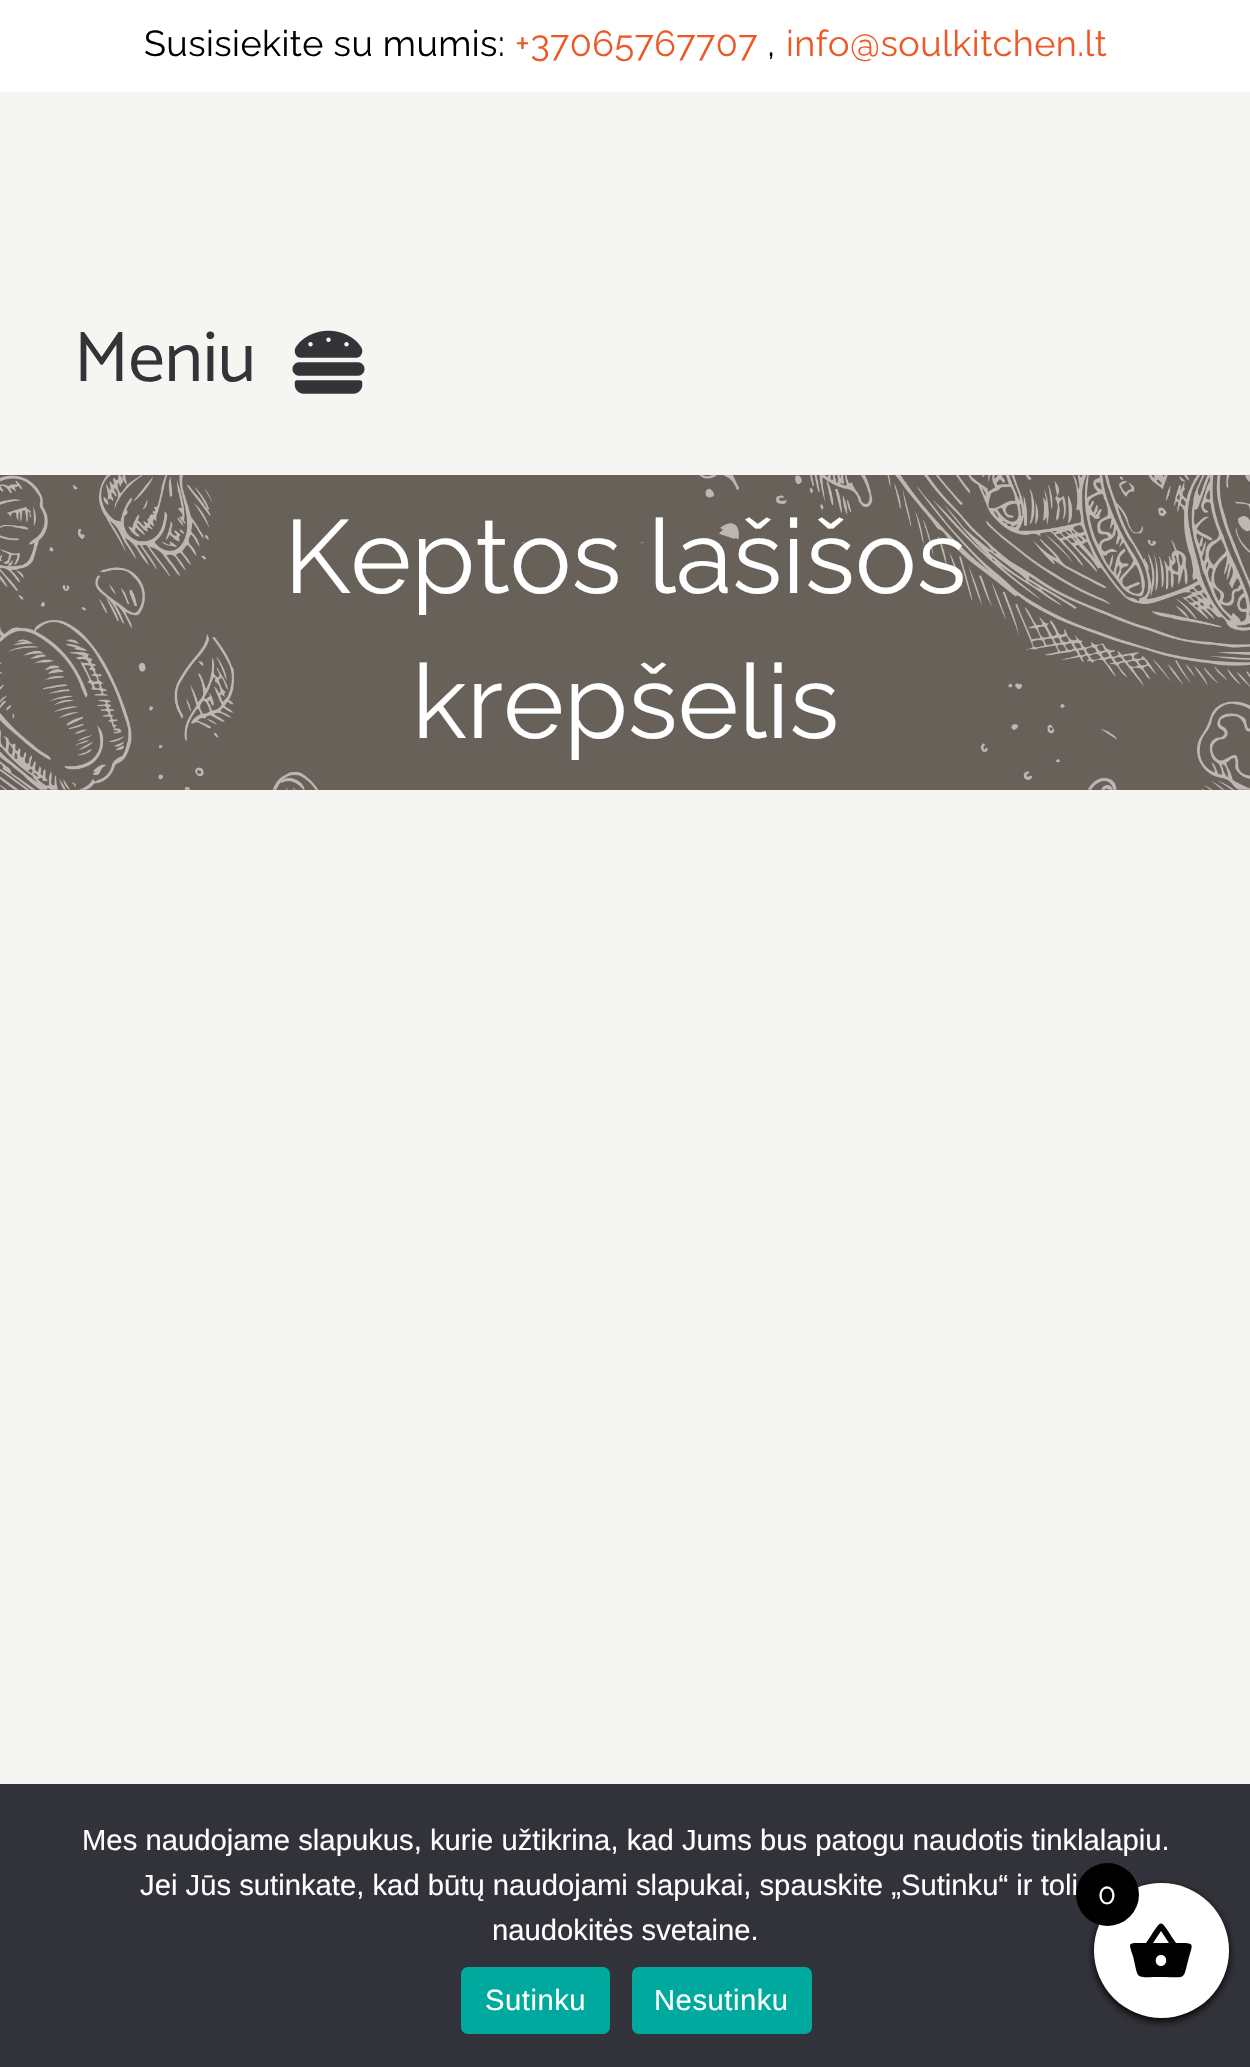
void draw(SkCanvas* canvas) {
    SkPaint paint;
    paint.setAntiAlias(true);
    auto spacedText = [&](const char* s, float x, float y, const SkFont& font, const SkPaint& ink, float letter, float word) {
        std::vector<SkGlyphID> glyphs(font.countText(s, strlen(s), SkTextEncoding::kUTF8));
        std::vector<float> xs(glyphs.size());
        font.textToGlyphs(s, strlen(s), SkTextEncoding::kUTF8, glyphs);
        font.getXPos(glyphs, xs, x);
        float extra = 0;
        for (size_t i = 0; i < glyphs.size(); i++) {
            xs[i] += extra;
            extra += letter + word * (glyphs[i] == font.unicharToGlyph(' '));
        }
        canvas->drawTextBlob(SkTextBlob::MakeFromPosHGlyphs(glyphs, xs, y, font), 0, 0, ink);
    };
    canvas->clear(0xFFF5F5F1);
    paint.setColor(0xFFFFFFFF);
    canvas->drawRect(SkRect::MakeXYWH(0, 0, 1250, 92), paint);
    SkFont font1(fontMgr->matchFamilyStyle("Raleway", SkFontStyle::Normal()), 36);
    font1.setSubpixel(true);
    paint.setColor(0xFF000000);
    spacedText("Susisiekite su mumis:", 144, 56, font1, paint, 0.45f, 0);
    paint.setColor(0xFFEE5827);
    spacedText("+37065767707", 515, 56, font1, paint, 0.45f, 0);
    paint.setColor(0xFF000000);
    spacedText(",", 767, 56, font1, paint, 0.45f, 0);
    paint.setColor(0xFFEE5827);
    spacedText("info@soulkitchen.lt", 786, 56, font1, paint, 0.45f, 0);
    SkFont font2(fontMgr->matchFamilyStyle("Catamaran", SkFontStyle::Normal()), 72);
    font2.setSubpixel(true);
    paint.setColor(0xFF333338);
    canvas->drawString("Meniu", 74, 381, font2, paint);
    canvas->drawImageRect(SkImages::DeferredFromEncodedData(SkData::MakeFromFileName("img1.png")), SkRect::MakeXYWH(292, 330, 73, 64), SkSamplingOptions());
    paint.setColor(0xFF67615A);
    canvas->drawRect(SkRect::MakeXYWH(0, 475, 1250, 315), paint);
    canvas->drawImageRect(SkImages::DeferredFromEncodedData(SkData::MakeFromFileName("img2.png")), SkRect::MakeXYWH(0, 474, 1250, 316), SkSamplingOptions());
    SkFont font3(fontMgr->matchFamilyStyle("Raleway", SkFontStyle::Normal()), 103.5f);
    font3.setSubpixel(true);
    paint.setColor(0xFFFFFFFF);
    canvas->drawString("Keptos lašišos", 284, 593, font3, paint);
    canvas->drawString("krepšelis", 412, 738, font3, paint);
    paint.setColor(0xFF32323A);
    canvas->drawRect(SkRect::MakeXYWH(0, 1784, 1250, 283), paint);
    SkFont font4(fontMgr->matchFamilyStyle("Liberation Sans", SkFontStyle::Normal()), 29.25f);
    font4.setSubpixel(true);
    paint.setColor(0xFFFFFFFF);
    canvas->drawString("Mes naudojame slapukus, kurie užtikrina, kad Jums bus patogu naudotis tinklalapiu.", 82, 1850, font4, paint);
    canvas->drawString("Jei Jūs sutinkate, kad būtų naudojami slapukai, spauskite „Sutinku“ ir toli", 140, 1895, font4, paint);
    canvas->drawString("naudokitės svetaine.", 492, 1940, font4, paint);
    paint.setColor(0xFF00A99D);
    canvas->drawRoundRect(SkRect::MakeXYWH(461, 1967, 149, 67), 7, 7, paint);
    paint.setColor(0xFFFFFFFF);
    spacedText("Sutinku", 485, 2010, font4, paint, 0.5f, 0);
    paint.setColor(0xFF00A99D);
    canvas->drawRoundRect(SkRect::MakeXYWH(632, 1967, 180, 67), 7, 7, paint);
    paint.setColor(0xFFFFFFFF);
    spacedText("Nesutinku", 654, 2010, font4, paint, 0.5f, 0);
    paint.setColor(0xFF000000);
    paint.setMaskFilter(SkMaskFilter::MakeBlur(kNormal_SkBlurStyle, 4.5f));
    canvas->drawRoundRect(SkRect::MakeXYWH(1094, 1886, 135, 135), 67.5f, 67.5f, paint);
    paint.setMaskFilter(nullptr);
    paint.setColor(0xFFFFFFFF);
    canvas->drawCircle(1161.5f, 1950.5f, 67.5f, paint);
    paint.setColor(0xFF000000);
    canvas->drawPath(SkPathBuilder().moveTo(1161, 1966).cubicTo(1168, 1966, 1168, 1955, 1161, 1955).cubicTo(1154, 1955, 1154, 1966, 1161, 1966).close().moveTo(1153, 1943).lineTo(1169, 1943).lineTo(1161, 1931).close().moveTo(1176, 1943).cubicTo(1196, 1943, 1193, 1942, 1188, 1961).cubicTo(1183, 1981, 1186, 1977, 1161, 1977).cubicTo(1134, 1977, 1139, 1981, 1133, 1956).cubicTo(1128, 1941, 1128, 1943, 1146, 1943).cubicTo(1164, 1917, 1158, 1917, 1176, 1943).close().detach(), paint);
    canvas->drawCircle(1107.5f, 1894.5f, 31.5f, paint);
    SkFont font5(fontMgr->matchFamilyStyle("Raleway", SkFontStyle::Normal()), 29.25f);
    font5.setSubpixel(true);
    paint.setColor(0xFFFFFFFF);
    spacedText("0", 1098, 1904, font5, paint, 0.45f, 0);
}
